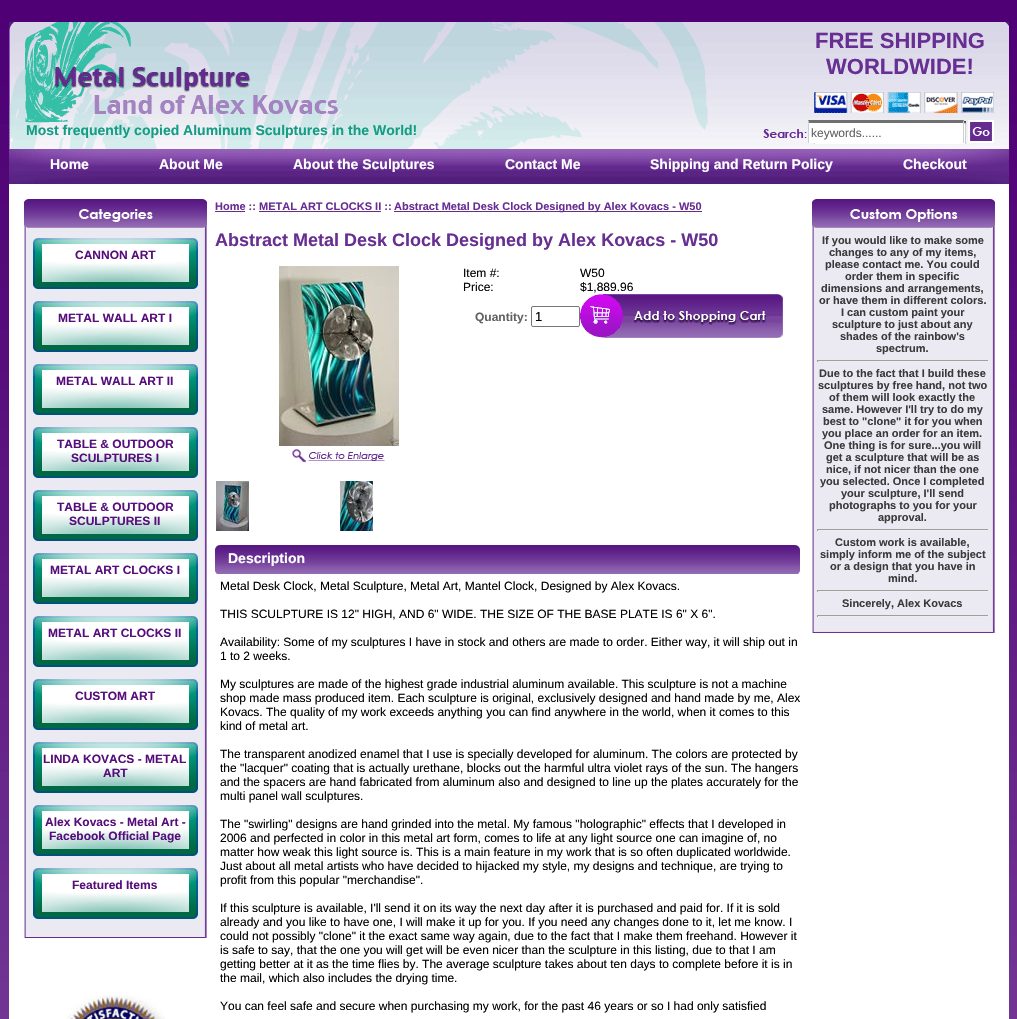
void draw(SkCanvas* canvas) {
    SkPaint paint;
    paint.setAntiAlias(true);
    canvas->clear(0xFFFFFFFF);
    canvas->drawImageRect(SkImages::DeferredFromEncodedData(SkData::MakeFromFileName("img1.png")), SkRect::MakeXYWH(0, 0, 1017, 1019), SkSamplingOptions());
    canvas->drawImageRect(SkImages::DeferredFromEncodedData(SkData::MakeFromFileName("img2.png")), SkRect::MakeXYWH(9, 22, 1000, 162), SkSamplingOptions());
    SkFont font1(fontMgr->matchFamilyStyle("Liberation Sans", SkFontStyle::Bold()), 14);
    font1.setSubpixel(true);
    paint.setColor(0xFF139D84);
    canvas->drawString("Most frequently copied Aluminum Sculptures in the World!", 26, 135, font1, paint);
    SkFont font2(fontMgr->matchFamilyStyle("Liberation Sans", SkFontStyle::Bold()), 22);
    font2.setSubpixel(true);
    paint.setColor(0xFF682F92);
    canvas->drawString("FREE SHIPPING", 815, 48, font2, paint);
    canvas->drawString("WORLDWIDE!", 826, 74, font2, paint);
    paint.setColor(0xFFFFFFFF);
    canvas->drawRect(SkRect::MakeXYWH(808, 120, 156, 23), paint);
    paint.setColor(0xFF707070);
    canvas->drawPath(SkPathBuilder().moveTo(808, 120).lineTo(964, 120).lineTo(963, 123).lineTo(809, 123).close().detach(), paint);
    paint.setColor(0xFFCFCFCF);
    canvas->drawPath(SkPathBuilder().moveTo(964, 120).lineTo(964, 143).lineTo(963, 143).lineTo(963, 123).close().detach(), paint);
    canvas->drawPath(SkPathBuilder().moveTo(808, 143).lineTo(808, 120).lineTo(809, 123).lineTo(809, 143).close().detach(), paint);
    SkFont font3(fontMgr->matchFamilyStyle("Liberation Sans", SkFontStyle::Normal()), 12);
    font3.setSubpixel(true);
    paint.setColor(0xFF626262);
    canvas->drawString("keywords......", 811, 137, font3, paint);
    canvas->drawImageRect(SkImages::DeferredFromEncodedData(SkData::MakeFromFileName("img3.png")), SkRect::MakeXYWH(968, 120, 26, 23), SkSamplingOptions());
    paint.setColor(0xFFFFFFFF);
    canvas->drawString("Home", 50, 169, font1, paint);
    canvas->drawString("About Me", 159, 169, font1, paint);
    canvas->drawString("About the Sculptures", 293, 169, font1, paint);
    canvas->drawString("Contact Me", 505, 169, font1, paint);
    canvas->drawString("Shipping and Return Policy", 650, 169, font1, paint);
    canvas->drawString("Checkout", 903, 169, font1, paint);
    canvas->drawRect(SkRect::MakeXYWH(9, 184, 1000, 835), paint);
    canvas->drawImageRect(SkImages::DeferredFromEncodedData(SkData::MakeFromFileName("img4.png")), SkRect::MakeXYWH(24, 228, 183, 707), SkSamplingOptions());
    canvas->drawImageRect(SkImages::DeferredFromEncodedData(SkData::MakeFromFileName("img5.png")), SkRect::MakeXYWH(24, 184, 183, 44), SkSamplingOptions());
    canvas->drawImageRect(SkImages::DeferredFromEncodedData(SkData::MakeFromFileName("img6.png")), SkRect::MakeXYWH(33, 238, 165, 51), SkSamplingOptions());
    SkFont font4(fontMgr->matchFamilyStyle("Liberation Sans", SkFontStyle::Bold()), 12);
    font4.setSubpixel(true);
    paint.setColor(0xFF570E7C);
    canvas->drawString("CANNON ART", 75, 259, font4, paint);
    canvas->drawImageRect(SkImages::DeferredFromEncodedData(SkData::MakeFromFileName("img6.png")), SkRect::MakeXYWH(33, 301, 165, 51), SkSamplingOptions());
    canvas->drawString("METAL WALL ART I", 58, 322, font4, paint);
    canvas->drawImageRect(SkImages::DeferredFromEncodedData(SkData::MakeFromFileName("img6.png")), SkRect::MakeXYWH(33, 364, 165, 51), SkSamplingOptions());
    canvas->drawString("METAL WALL ART II", 56, 385, font4, paint);
    canvas->drawImageRect(SkImages::DeferredFromEncodedData(SkData::MakeFromFileName("img6.png")), SkRect::MakeXYWH(33, 427, 165, 51), SkSamplingOptions());
    canvas->drawString("TABLE & OUTDOOR", 57, 448, font4, paint);
    canvas->drawString("SCULPTURES I", 71, 462, font4, paint);
    canvas->drawImageRect(SkImages::DeferredFromEncodedData(SkData::MakeFromFileName("img6.png")), SkRect::MakeXYWH(33, 490, 165, 51), SkSamplingOptions());
    canvas->drawString("TABLE & OUTDOOR", 57, 511, font4, paint);
    canvas->drawString("SCULPTURES II", 69, 525, font4, paint);
    canvas->drawImageRect(SkImages::DeferredFromEncodedData(SkData::MakeFromFileName("img6.png")), SkRect::MakeXYWH(33, 553, 165, 51), SkSamplingOptions());
    canvas->drawString("METAL ART CLOCKS I", 50, 574, font4, paint);
    canvas->drawImageRect(SkImages::DeferredFromEncodedData(SkData::MakeFromFileName("img6.png")), SkRect::MakeXYWH(33, 616, 165, 51), SkSamplingOptions());
    canvas->drawString("METAL ART CLOCKS II", 48, 637, font4, paint);
    canvas->drawImageRect(SkImages::DeferredFromEncodedData(SkData::MakeFromFileName("img6.png")), SkRect::MakeXYWH(33, 679, 165, 51), SkSamplingOptions());
    canvas->drawString("CUSTOM ART", 75, 700, font4, paint);
    canvas->drawImageRect(SkImages::DeferredFromEncodedData(SkData::MakeFromFileName("img6.png")), SkRect::MakeXYWH(33, 742, 165, 51), SkSamplingOptions());
    canvas->drawString("LINDA KOVACS - METAL", 43, 763, font4, paint);
    canvas->drawString("ART", 103, 777, font4, paint);
    canvas->drawImageRect(SkImages::DeferredFromEncodedData(SkData::MakeFromFileName("img6.png")), SkRect::MakeXYWH(33, 805, 165, 51), SkSamplingOptions());
    canvas->drawString("Alex Kovacs - Metal Art -", 45, 826, font4, paint);
    canvas->drawString("Facebook Official Page", 49, 840, font4, paint);
    canvas->drawImageRect(SkImages::DeferredFromEncodedData(SkData::MakeFromFileName("img6.png")), SkRect::MakeXYWH(33, 868, 165, 51), SkSamplingOptions());
    canvas->drawString("Featured Items", 72, 889, font4, paint);
    canvas->drawImageRect(SkImages::DeferredFromEncodedData(SkData::MakeFromFileName("img7.png")), SkRect::MakeXYWH(24, 935, 183, 3), SkSamplingOptions());
    canvas->drawImageRect(SkImages::DeferredFromEncodedData(SkData::MakeFromFileName("img8.png")), SkRect::MakeXYWH(67, 995, 98, 24), SkSamplingOptions());
    SkFont font5(fontMgr->matchFamilyStyle("Liberation Sans", SkFontStyle::Bold()), 11);
    font5.setSubpixel(true);
    paint.setColor(0xFF682F92);
    canvas->drawString("Home :: METAL ART CLOCKS II ::", 215, 210, font5, paint);
    paint.setColor(0xFF652B8F);
    canvas->drawRect(SkRect::MakeXYWH(215, 211, 30, 1), paint);
    canvas->drawRect(SkRect::MakeXYWH(394, 211, 308, 1), paint);
    paint.setColor(0xFF682F92);
    canvas->drawString("Abstract Metal Desk Clock Designed by Alex Kovacs - W50", 394, 210, font5, paint);
    paint.setColor(0xFF652B8F);
    canvas->drawRect(SkRect::MakeXYWH(259, 211, 122, 1), paint);
    SkFont font6(fontMgr->matchFamilyStyle("Liberation Sans", SkFontStyle::Bold()), 18);
    font6.setSubpixel(true);
    paint.setColor(0xFF682F92);
    canvas->drawString("Abstract Metal Desk Clock Designed by Alex Kovacs - W50", 215, 246, font6, paint);
    canvas->drawImageRect(SkImages::DeferredFromEncodedData(SkData::MakeFromFileName("img9.png")), SkRect::MakeXYWH(279, 266, 120, 180), SkSamplingOptions());
    canvas->drawImageRect(SkImages::DeferredFromEncodedData(SkData::MakeFromFileName("img10.png")), SkRect::MakeXYWH(292, 449, 93, 14), SkSamplingOptions());
    canvas->drawImageRect(SkImages::DeferredFromEncodedData(SkData::MakeFromFileName("img11.png")), SkRect::MakeXYWH(216, 481, 33, 50), SkSamplingOptions());
    canvas->drawImageRect(SkImages::DeferredFromEncodedData(SkData::MakeFromFileName("img12.png")), SkRect::MakeXYWH(340, 481, 33, 50), SkSamplingOptions());
    paint.setColor(0xFF000000);
    canvas->drawString("Item #:", 463, 277, font3, paint);
    canvas->drawString("W50", 580, 277, font3, paint);
    canvas->drawString("Price:", 463, 291, font3, paint);
    canvas->drawString("$1,889.96", 580, 291, font3, paint);
    paint.setColor(0xFF626262);
    canvas->drawString("Quantity:", 475, 321, font4, paint);
    paint.setStyle(SkPaint::kStroke_Style);
    paint.setStrokeWidth(1);
    paint.setColor(0xFF767676);
    canvas->drawRoundRect(SkRect::MakeXYWH(531.5f, 306.5f, 48, 20), 1.5f, 1.5f, paint);
    SkFont font7(fontMgr->matchFamilyStyle("Liberation Sans", SkFontStyle::Normal()), 13);
    font7.setSubpixel(true);
    paint.setStyle(SkPaint::kFill_Style);
    paint.setColor(0xFF000000);
    canvas->drawString("1", 535, 321, font7, paint);
    canvas->drawImageRect(SkImages::DeferredFromEncodedData(SkData::MakeFromFileName("img13.png")), SkRect::MakeXYWH(580, 294, 203, 44), SkSamplingOptions());
    canvas->drawImageRect(SkImages::DeferredFromEncodedData(SkData::MakeFromFileName("img14.png")), SkRect::MakeXYWH(215, 545, 585, 29), SkSamplingOptions());
    paint.setColor(0xFFFFFFFF);
    canvas->drawString("Description", 228, 563, font1, paint);
    paint.setColor(0xFF000000);
    canvas->drawString("Metal Desk Clock, Metal Sculpture, Metal Art, Mantel Clock, Designed by Alex Kovacs.", 220, 590, font3, paint);
    canvas->drawString("THIS SCULPTURE IS 12\" HIGH, AND 6\" WIDE. THE SIZE OF THE BASE PLATE IS 6\" X 6\".", 220, 618, font3, paint);
    canvas->drawString("Availability: Some of my sculptures I have in stock and others are made to order. Either way, it will ship out in", 220, 646, font3, paint);
    canvas->drawString("1 to 2 weeks.", 220, 660, font3, paint);
    canvas->drawString("My sculptures are made of the highest grade industrial aluminum available. This sculpture is not a machine", 220, 688, font3, paint);
    canvas->drawString("shop made mass produced item. Each sculpture is original, exclusively designed and hand made by me, Alex", 220, 702, font3, paint);
    canvas->drawString("Kovacs. The quality of my work exceeds anything you can find anywhere in the world, when it comes to this", 220, 716, font3, paint);
    canvas->drawString("kind of metal art.", 220, 730, font3, paint);
    canvas->drawString("The transparent anodized enamel that I use is specially developed for aluminum. The colors are protected by", 220, 758, font3, paint);
    canvas->drawString("the \"lacquer\" coating that is actually urethane, blocks out the harmful ultra violet rays of the sun. The hangers", 220, 772, font3, paint);
    canvas->drawString("and the spacers are hand fabricated from aluminum also and designed to line up the plates accurately for the", 220, 786, font3, paint);
    canvas->drawString("multi panel wall sculptures.", 220, 800, font3, paint);
    canvas->drawString("The \"swirling\" designs are hand grinded into the metal. My famous \"holographic\" effects that I developed in", 220, 828, font3, paint);
    canvas->drawString("2006 and perfected in color in this metal art form, comes to life at any light source one can imagine of, no", 220, 842, font3, paint);
    canvas->drawString("matter how weak this light source is. This is a main feature in my work that is so often duplicated worldwide.", 220, 856, font3, paint);
    canvas->drawString("Just about all metal artists who have decided to hijacked my style, my designs and technique, are trying to", 220, 870, font3, paint);
    canvas->drawString("profit from this popular \"merchandise\".", 220, 884, font3, paint);
    canvas->drawString("If this sculpture is available, I'll send it on its way the next day after it is purchased and paid for. If it is sold", 220, 912, font3, paint);
    canvas->drawString("already and you like to have one, I will make it up for you. If you need any changes done to it, let me know. I", 220, 926, font3, paint);
    canvas->drawString("could not possibly \"clone\" it the exact same way again, due to the fact that I make them freehand. However it", 220, 940, font3, paint);
    canvas->drawString("is safe to say, that the one you will get will be even nicer than the sculpture in this listing, due to that I am", 220, 954, font3, paint);
    canvas->drawString("getting better at it as the time flies by. The average sculpture takes about ten days to complete before it is in", 220, 968, font3, paint);
    canvas->drawString("the mail, which also includes the drying time.", 220, 982, font3, paint);
    canvas->drawString("You can feel safe and secure when purchasing my work, for the past 46 years or so I had only satisfied", 220, 1010, font3, paint);
    canvas->drawImageRect(SkImages::DeferredFromEncodedData(SkData::MakeFromFileName("img15.png")), SkRect::MakeXYWH(812, 228, 183, 399), SkSamplingOptions());
    canvas->drawImageRect(SkImages::DeferredFromEncodedData(SkData::MakeFromFileName("img16.png")), SkRect::MakeXYWH(812, 184, 183, 44), SkSamplingOptions());
    paint.setColor(0xFF3A3A3A);
    canvas->drawString("If you would like to make some", 822, 244, font5, paint);
    canvas->drawString("changes to any of my items,", 829, 256, font5, paint);
    canvas->drawString("please contact me. You could", 825, 268, font5, paint);
    canvas->drawString("order them in specific", 845, 280, font5, paint);
    canvas->drawString("dimensions and arrangements,", 821, 292, font5, paint);
    canvas->drawString("or have them in different colors.", 819, 304, font5, paint);
    canvas->drawString("I can custom paint your", 841, 316, font5, paint);
    canvas->drawString("sculpture to just about any", 832, 328, font5, paint);
    canvas->drawString("shades of the rainbow's", 840, 340, font5, paint);
    canvas->drawString("spectrum.", 876, 352, font5, paint);
    paint.setColor(0xFF9F9F9F);
    canvas->drawRect(SkRect::MakeXYWH(817, 360, 172, 1), paint);
    paint.setColor(0xFFEEEEEE);
    canvas->drawRect(SkRect::MakeXYWH(988, 360, 1, 2), paint);
    canvas->drawRect(SkRect::MakeXYWH(817, 361, 172, 1), paint);
    paint.setColor(0xFF9F9F9F);
    canvas->drawRect(SkRect::MakeXYWH(817, 360, 1, 2), paint);
    paint.setColor(0xFF3A3A3A);
    canvas->drawString("Due to the fact that I build these", 819, 377, font5, paint);
    canvas->drawString("sculptures by free hand, not two", 818, 389, font5, paint);
    canvas->drawString("of them will look exactly the", 829, 401, font5, paint);
    canvas->drawString("same. However I'll try to do my", 822, 413, font5, paint);
    canvas->drawString("best to \"clone\" it for you when", 823, 425, font5, paint);
    canvas->drawString("you place an order for an item.", 822, 437, font5, paint);
    canvas->drawString("One thing is for sure...you will", 824, 449, font5, paint);
    canvas->drawString("get a sculpture that will be as", 826, 461, font5, paint);
    canvas->drawString("nice, if not nicer than the one", 826, 473, font5, paint);
    canvas->drawString("you selected. Once I completed", 820, 485, font5, paint);
    canvas->drawString("your sculpture, I'll send", 841, 497, font5, paint);
    canvas->drawString("photographs to you for your", 829, 509, font5, paint);
    canvas->drawString("approval.", 878, 521, font5, paint);
    paint.setColor(0xFF9F9F9F);
    canvas->drawRect(SkRect::MakeXYWH(817, 529, 172, 1), paint);
    paint.setColor(0xFFEEEEEE);
    canvas->drawRect(SkRect::MakeXYWH(988, 529, 1, 2), paint);
    canvas->drawRect(SkRect::MakeXYWH(817, 530, 172, 1), paint);
    paint.setColor(0xFF9F9F9F);
    canvas->drawRect(SkRect::MakeXYWH(817, 529, 1, 2), paint);
    paint.setColor(0xFF3A3A3A);
    canvas->drawString("Custom work is available,", 835, 546, font5, paint);
    canvas->drawString("simply inform me of the subject", 820, 558, font5, paint);
    canvas->drawString("or a design that you have in", 830, 570, font5, paint);
    canvas->drawString("mind.", 888, 582, font5, paint);
    paint.setColor(0xFF9F9F9F);
    canvas->drawRect(SkRect::MakeXYWH(817, 590, 172, 1), paint);
    paint.setColor(0xFFEEEEEE);
    canvas->drawRect(SkRect::MakeXYWH(988, 590, 1, 2), paint);
    canvas->drawRect(SkRect::MakeXYWH(817, 591, 172, 1), paint);
    paint.setColor(0xFF9F9F9F);
    canvas->drawRect(SkRect::MakeXYWH(817, 590, 1, 2), paint);
    paint.setColor(0xFF3A3A3A);
    canvas->drawString("Sincerely, Alex Kovacs", 842, 607, font5, paint);
    paint.setColor(0xFF9F9F9F);
    canvas->drawRect(SkRect::MakeXYWH(817, 615, 172, 1), paint);
    paint.setColor(0xFFEEEEEE);
    canvas->drawRect(SkRect::MakeXYWH(988, 615, 1, 2), paint);
    canvas->drawRect(SkRect::MakeXYWH(817, 616, 172, 1), paint);
    paint.setColor(0xFF9F9F9F);
    canvas->drawRect(SkRect::MakeXYWH(817, 615, 1, 2), paint);
    canvas->drawImageRect(SkImages::DeferredFromEncodedData(SkData::MakeFromFileName("img17.png")), SkRect::MakeXYWH(812, 627, 183, 6), SkSamplingOptions());
}
